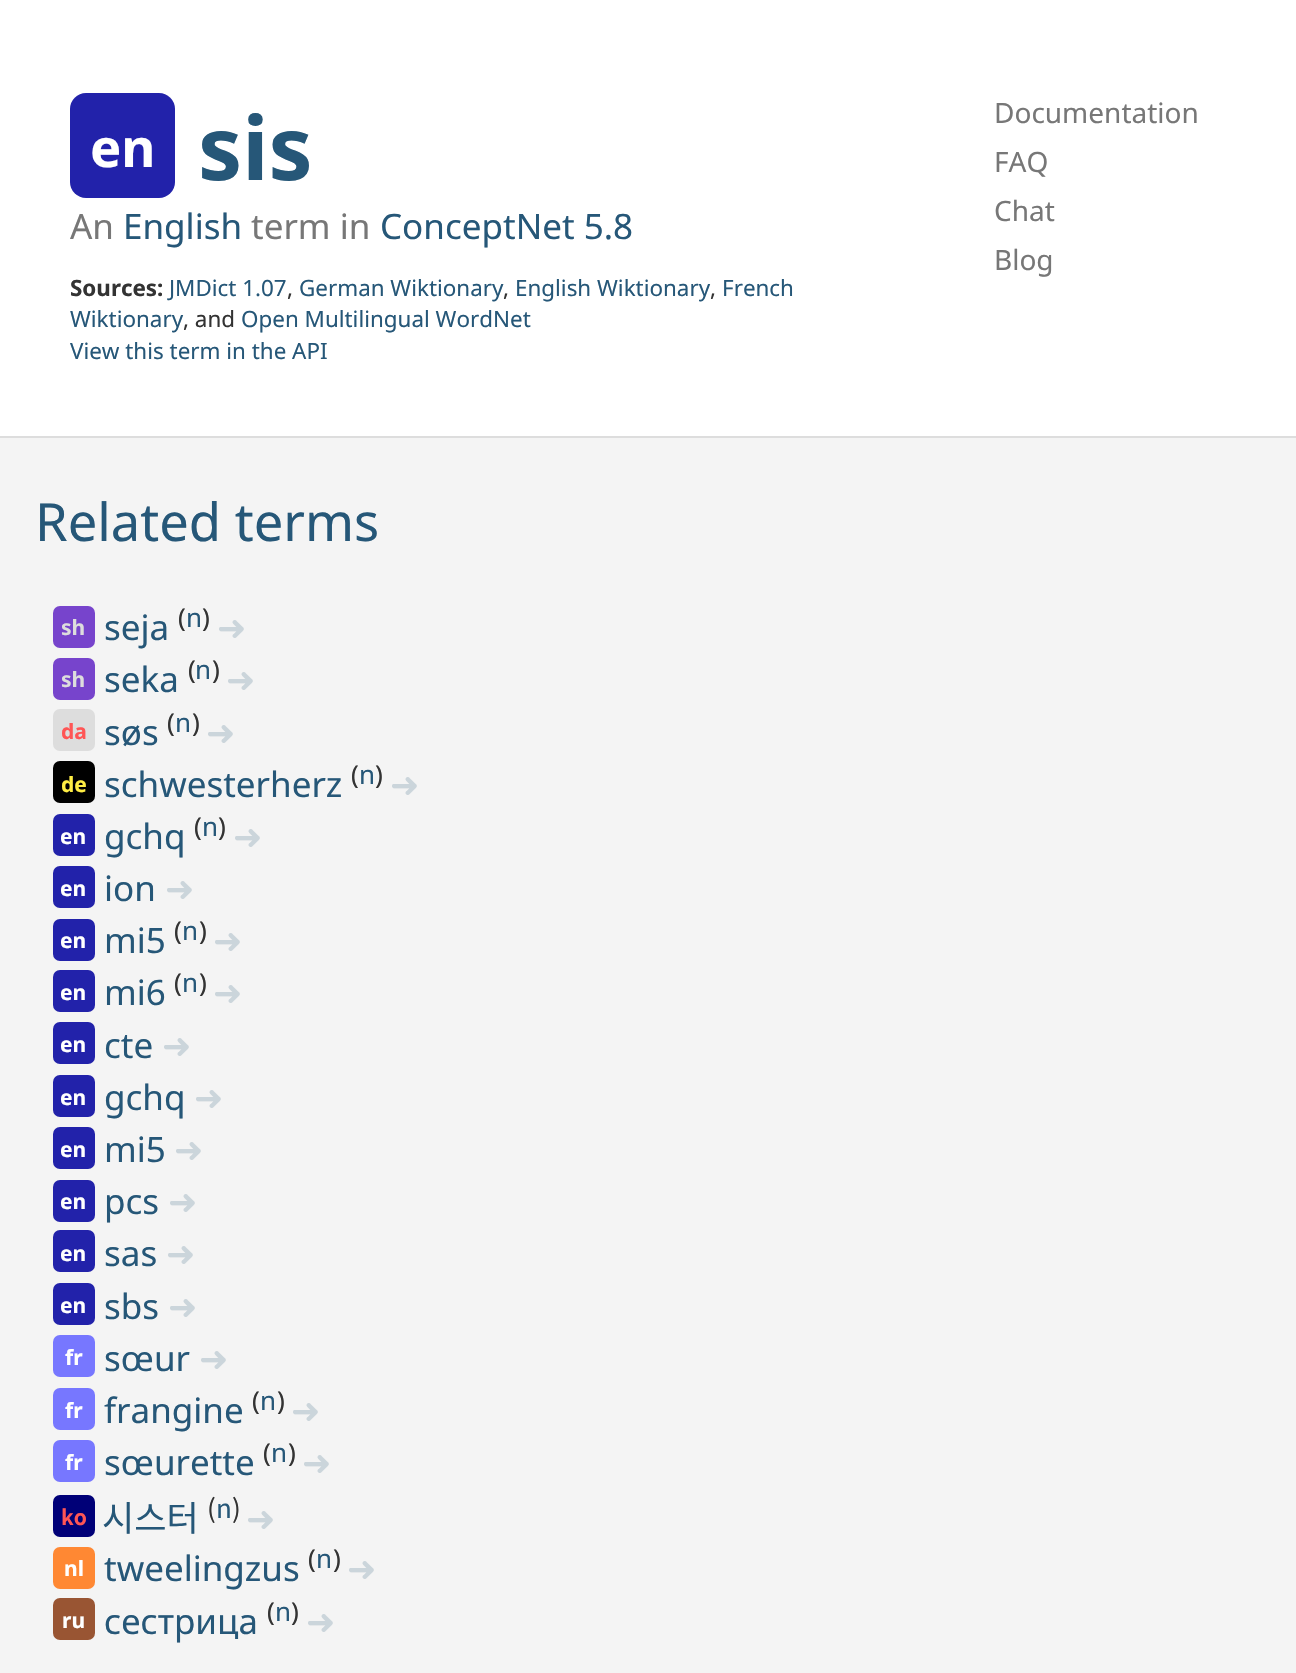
void draw(SkCanvas* canvas) {
    SkPaint paint;
    paint.setAntiAlias(true);
    canvas->clear(0xFFFFFFFF);
    paint.setColor(0xFF2222AA);
    canvas->drawRoundRect(SkRect::MakeXYWH(70, 93, 105, 105), 16, 16, paint);
    SkFont font1(fontMgr->matchFamilyStyle("Noto Sans", SkFontStyle::Bold()), 52.5f);
    font1.setSubpixel(true);
    paint.setColor(0xFFFFFFFF);
    canvas->drawString("en", 90, 167, font1, paint);
    SkFont font2(fontMgr->matchFamilyStyle("Noto Sans", SkFontStyle::Bold()), 88);
    font2.setSubpixel(true);
    paint.setColor(0xFF265778);
    canvas->drawString("sis", 198, 180, font2, paint);
    SkFont font3(fontMgr->matchFamilyStyle("Noto Sans", SkFontStyle::Normal()), 35);
    font3.setSubpixel(true);
    paint.setColor(0xFF777777);
    canvas->drawString("An", 70, 239, font3, paint);
    paint.setColor(0xFF265778);
    canvas->drawString("English", 123, 239, font3, paint);
    paint.setColor(0xFF777777);
    canvas->drawString("term in", 251, 239, font3, paint);
    paint.setColor(0xFF265778);
    canvas->drawString("ConceptNet 5.8", 380, 239, font3, paint);
    SkFont font4(fontMgr->matchFamilyStyle("Noto Sans", SkFontStyle::Bold()), 22.4f);
    font4.setSubpixel(true);
    paint.setColor(0xFF333333);
    canvas->drawString("Sources:", 70, 296, font4, paint);
    SkFont font5(fontMgr->matchFamilyStyle("Noto Sans", SkFontStyle::Normal()), 22.4f);
    font5.setSubpixel(true);
    paint.setColor(0xFF265778);
    canvas->drawString("JMDict 1.07", 169, 296, font5, paint);
    paint.setColor(0xFF333333);
    canvas->drawString(",", 287, 296, font5, paint);
    paint.setColor(0xFF265778);
    canvas->drawString("German Wiktionary", 299, 296, font5, paint);
    paint.setColor(0xFF333333);
    canvas->drawString(",", 503, 296, font5, paint);
    paint.setColor(0xFF265778);
    canvas->drawString("English Wiktionary", 515, 296, font5, paint);
    paint.setColor(0xFF333333);
    canvas->drawString(",", 710, 296, font5, paint);
    paint.setColor(0xFF265778);
    canvas->drawString("French", 722, 296, font5, paint);
    canvas->drawString("Wiktionary", 70, 327, font5, paint);
    paint.setColor(0xFF333333);
    canvas->drawString(", and", 183, 327, font5, paint);
    paint.setColor(0xFF265778);
    canvas->drawString("Open Multilingual WordNet", 241, 327, font5, paint);
    canvas->drawString("View this term in the API", 70, 359, font5, paint);
    SkFont font6(fontMgr->matchFamilyStyle("Noto Sans", SkFontStyle::Normal()), 28);
    font6.setSubpixel(true);
    paint.setColor(0xFF777777);
    canvas->drawString("Documentation", 994, 123, font6, paint);
    canvas->drawString("FAQ", 994, 172, font6, paint);
    canvas->drawString("Chat", 994, 221, font6, paint);
    canvas->drawString("Blog", 994, 270, font6, paint);
    paint.setColor(0xFFF4F4F4);
    canvas->drawRect(SkRect::MakeXYWH(0, 438, 1296, 1235), paint);
    paint.setColor(0xFFDDDDDD);
    canvas->drawRect(SkRect::MakeXYWH(0, 436, 1296, 2), paint);
    SkFont font7(fontMgr->matchFamilyStyle("Noto Sans", SkFontStyle::Normal()), 52.5f);
    font7.setSubpixel(true);
    paint.setColor(0xFF265778);
    canvas->drawString("Related terms", 35, 541, font7, paint);
    paint.setColor(0xFF7744CC);
    canvas->drawRoundRect(SkRect::MakeXYWH(53, 606, 42, 42), 7, 7, paint);
    SkFont font8(fontMgr->matchFamilyStyle("Noto Sans", SkFontStyle::Bold()), 21);
    font8.setSubpixel(true);
    paint.setColor(0xFFDDDDDD);
    canvas->drawString("sh", 61, 635, font8, paint);
    paint.setColor(0xFF265778);
    canvas->drawString("seja", 104, 640, font3, paint);
    SkFont font9(fontMgr->matchFamilyStyle("Noto Sans", SkFontStyle::Normal()), 26);
    font9.setSubpixel(true);
    paint.setColor(0xFF333333);
    canvas->drawString("(", 178, 627, font9, paint);
    paint.setColor(0xFF265778);
    canvas->drawString("n", 186, 627, font9, paint);
    paint.setColor(0xFF333333);
    canvas->drawString(")", 202, 627, font9, paint);
    SkFont font10(fontMgr->matchFamilyStyle("DejaVu Sans", SkFontStyle::Normal()), 35);
    font10.setSubpixel(true);
    paint.setColor(0xFFCBD5DB);
    canvas->drawString("➜", 217, 640, font10, paint);
    paint.setColor(0xFF7744CC);
    canvas->drawRoundRect(SkRect::MakeXYWH(53, 658, 42, 42), 7, 7, paint);
    paint.setColor(0xFFDDDDDD);
    canvas->drawString("sh", 61, 687, font8, paint);
    paint.setColor(0xFF265778);
    canvas->drawString("seka", 104, 692, font3, paint);
    paint.setColor(0xFF333333);
    canvas->drawString("(", 188, 679, font9, paint);
    paint.setColor(0xFF265778);
    canvas->drawString("n", 195, 679, font9, paint);
    paint.setColor(0xFF333333);
    canvas->drawString(")", 212, 679, font9, paint);
    paint.setColor(0xFFCBD5DB);
    canvas->drawString("➜", 226, 692, font10, paint);
    paint.setColor(0xFFDDDDDD);
    canvas->drawRoundRect(SkRect::MakeXYWH(53, 709, 42, 42), 7, 7, paint);
    paint.setColor(0xFFFF5555);
    canvas->drawString("da", 61, 739, font8, paint);
    paint.setColor(0xFF265778);
    canvas->drawString("søs", 104, 745, font3, paint);
    paint.setColor(0xFF333333);
    canvas->drawString("(", 167, 732, font9, paint);
    paint.setColor(0xFF265778);
    canvas->drawString("n", 175, 732, font9, paint);
    paint.setColor(0xFF333333);
    canvas->drawString(")", 192, 732, font9, paint);
    paint.setColor(0xFFCBD5DB);
    canvas->drawString("➜", 206, 745, font10, paint);
    paint.setColor(0xFF000000);
    canvas->drawRoundRect(SkRect::MakeXYWH(53, 761, 42, 42), 7, 7, paint);
    paint.setColor(0xFFFFEE44);
    canvas->drawString("de", 61, 792, font8, paint);
    paint.setColor(0xFF265778);
    canvas->drawString("schwesterherz", 104, 797, font3, paint);
    paint.setColor(0xFF333333);
    canvas->drawString("(", 351, 784, font9, paint);
    paint.setColor(0xFF265778);
    canvas->drawString("n", 359, 784, font9, paint);
    paint.setColor(0xFF333333);
    canvas->drawString(")", 375, 784, font9, paint);
    paint.setColor(0xFFCBD5DB);
    canvas->drawString("➜", 390, 797, font10, paint);
    paint.setColor(0xFF2222AA);
    canvas->drawRoundRect(SkRect::MakeXYWH(53, 814, 42, 42), 7, 7, paint);
    paint.setColor(0xFFFFFFFF);
    canvas->drawString("en", 60, 844, font8, paint);
    paint.setColor(0xFF265778);
    canvas->drawString("gchq", 104, 849, font3, paint);
    paint.setColor(0xFF333333);
    canvas->drawString("(", 194, 836, font9, paint);
    paint.setColor(0xFF265778);
    canvas->drawString("n", 202, 836, font9, paint);
    paint.setColor(0xFF333333);
    canvas->drawString(")", 218, 836, font9, paint);
    paint.setColor(0xFFCBD5DB);
    canvas->drawString("➜", 233, 849, font10, paint);
    paint.setColor(0xFF2222AA);
    canvas->drawRoundRect(SkRect::MakeXYWH(53, 866, 42, 42), 7, 7, paint);
    paint.setColor(0xFFFFFFFF);
    canvas->drawString("en", 60, 896, font8, paint);
    paint.setColor(0xFF265778);
    canvas->drawString("ion", 104, 901, font3, paint);
    paint.setColor(0xFFCBD5DB);
    canvas->drawString("➜", 165, 901, font10, paint);
    paint.setColor(0xFF2222AA);
    canvas->drawRoundRect(SkRect::MakeXYWH(53, 919, 42, 42), 7, 7, paint);
    paint.setColor(0xFFFFFFFF);
    canvas->drawString("en", 60, 948, font8, paint);
    paint.setColor(0xFF265778);
    canvas->drawString("mi5", 104, 953, font3, paint);
    paint.setColor(0xFF333333);
    canvas->drawString("(", 174, 940, font9, paint);
    paint.setColor(0xFF265778);
    canvas->drawString("n", 182, 940, font9, paint);
    paint.setColor(0xFF333333);
    canvas->drawString(")", 199, 940, font9, paint);
    paint.setColor(0xFFCBD5DB);
    canvas->drawString("➜", 213, 953, font10, paint);
    paint.setColor(0xFF2222AA);
    canvas->drawRoundRect(SkRect::MakeXYWH(53, 970, 42, 42), 7, 7, paint);
    paint.setColor(0xFFFFFFFF);
    canvas->drawString("en", 60, 1000, font8, paint);
    paint.setColor(0xFF265778);
    canvas->drawString("mi6", 104, 1005, font3, paint);
    paint.setColor(0xFF333333);
    canvas->drawString("(", 174, 992, font9, paint);
    paint.setColor(0xFF265778);
    canvas->drawString("n", 182, 992, font9, paint);
    paint.setColor(0xFF333333);
    canvas->drawString(")", 199, 992, font9, paint);
    paint.setColor(0xFFCBD5DB);
    canvas->drawString("➜", 213, 1005, font10, paint);
    paint.setColor(0xFF2222AA);
    canvas->drawRoundRect(SkRect::MakeXYWH(53, 1022, 42, 42), 7, 7, paint);
    paint.setColor(0xFFFFFFFF);
    canvas->drawString("en", 60, 1052, font8, paint);
    paint.setColor(0xFF265778);
    canvas->drawString("cte", 104, 1058, font3, paint);
    paint.setColor(0xFFCBD5DB);
    canvas->drawString("➜", 162, 1058, font10, paint);
    paint.setColor(0xFF2222AA);
    canvas->drawRoundRect(SkRect::MakeXYWH(53, 1075, 42, 42), 7, 7, paint);
    paint.setColor(0xFFFFFFFF);
    canvas->drawString("en", 60, 1105, font8, paint);
    paint.setColor(0xFF265778);
    canvas->drawString("gchq", 104, 1110, font3, paint);
    paint.setColor(0xFFCBD5DB);
    canvas->drawString("➜", 194, 1110, font10, paint);
    paint.setColor(0xFF2222AA);
    canvas->drawRoundRect(SkRect::MakeXYWH(53, 1127, 42, 42), 7, 7, paint);
    paint.setColor(0xFFFFFFFF);
    canvas->drawString("en", 60, 1157, font8, paint);
    paint.setColor(0xFF265778);
    canvas->drawString("mi5", 104, 1162, font3, paint);
    paint.setColor(0xFFCBD5DB);
    canvas->drawString("➜", 174, 1162, font10, paint);
    paint.setColor(0xFF2222AA);
    canvas->drawRoundRect(SkRect::MakeXYWH(53, 1180, 42, 42), 7, 7, paint);
    paint.setColor(0xFFFFFFFF);
    canvas->drawString("en", 60, 1209, font8, paint);
    paint.setColor(0xFF265778);
    canvas->drawString("pcs", 104, 1214, font3, paint);
    paint.setColor(0xFFCBD5DB);
    canvas->drawString("➜", 168, 1214, font10, paint);
    paint.setColor(0xFF2222AA);
    canvas->drawRoundRect(SkRect::MakeXYWH(53, 1230, 42, 42), 7, 7, paint);
    paint.setColor(0xFFFFFFFF);
    canvas->drawString("en", 60, 1261, font8, paint);
    paint.setColor(0xFF265778);
    canvas->drawString("sas", 104, 1266, font3, paint);
    paint.setColor(0xFFCBD5DB);
    canvas->drawString("➜", 166, 1266, font10, paint);
    paint.setColor(0xFF2222AA);
    canvas->drawRoundRect(SkRect::MakeXYWH(53, 1283, 42, 42), 7, 7, paint);
    paint.setColor(0xFFFFFFFF);
    canvas->drawString("en", 60, 1313, font8, paint);
    paint.setColor(0xFF265778);
    canvas->drawString("sbs", 104, 1319, font3, paint);
    paint.setColor(0xFFCBD5DB);
    canvas->drawString("➜", 168, 1319, font10, paint);
    paint.setColor(0xFF7777FF);
    canvas->drawRoundRect(SkRect::MakeXYWH(53, 1335, 42, 42), 7, 7, paint);
    paint.setColor(0xFFFFFFFF);
    canvas->drawString("fr", 65, 1365, font8, paint);
    paint.setColor(0xFF265778);
    canvas->drawString("sœur", 104, 1371, font3, paint);
    paint.setColor(0xFFCBD5DB);
    canvas->drawString("➜", 199, 1371, font10, paint);
    paint.setColor(0xFF7777FF);
    canvas->drawRoundRect(SkRect::MakeXYWH(53, 1388, 42, 42), 7, 7, paint);
    paint.setColor(0xFFFFFFFF);
    canvas->drawString("fr", 65, 1418, font8, paint);
    paint.setColor(0xFF265778);
    canvas->drawString("frangine", 104, 1423, font3, paint);
    paint.setColor(0xFF333333);
    canvas->drawString("(", 252, 1410, font9, paint);
    paint.setColor(0xFF265778);
    canvas->drawString("n", 260, 1410, font9, paint);
    paint.setColor(0xFF333333);
    canvas->drawString(")", 277, 1410, font9, paint);
    paint.setColor(0xFFCBD5DB);
    canvas->drawString("➜", 291, 1423, font10, paint);
    paint.setColor(0xFF7777FF);
    canvas->drawRoundRect(SkRect::MakeXYWH(53, 1440, 42, 42), 7, 7, paint);
    paint.setColor(0xFFFFFFFF);
    canvas->drawString("fr", 65, 1470, font8, paint);
    paint.setColor(0xFF265778);
    canvas->drawString("sœurette", 104, 1475, font3, paint);
    paint.setColor(0xFF333333);
    canvas->drawString("(", 263, 1462, font9, paint);
    paint.setColor(0xFF265778);
    canvas->drawString("n", 271, 1462, font9, paint);
    paint.setColor(0xFF333333);
    canvas->drawString(")", 288, 1462, font9, paint);
    paint.setColor(0xFFCBD5DB);
    canvas->drawString("➜", 302, 1475, font10, paint);
    paint.setColor(0xFF000077);
    canvas->drawRoundRect(SkRect::MakeXYWH(53, 1495, 42, 42), 7, 7, paint);
    SkFont font11(fontMgr->matchFamilyStyle("Noto Sans CJK KR", SkFontStyle::Bold()), 21);
    font11.setSubpixel(true);
    paint.setColor(0xFFFF5555);
    canvas->drawString("ko", 61, 1525, font11, paint);
    SkFont font12(fontMgr->matchFamilyStyle("Noto Sans CJK KR", SkFontStyle::Normal()), 35);
    font12.setSubpixel(true);
    paint.setColor(0xFF265778);
    canvas->drawString("시스터", 102, 1531, font12, paint);
    SkFont font13(fontMgr->matchFamilyStyle("Noto Sans CJK KR", SkFontStyle::Normal()), 26);
    font13.setSubpixel(true);
    paint.setColor(0xFF333333);
    canvas->drawString("(", 207, 1518, font13, paint);
    paint.setColor(0xFF265778);
    canvas->drawString("n", 216, 1518, font13, paint);
    paint.setColor(0xFF333333);
    canvas->drawString(")", 232, 1518, font13, paint);
    paint.setColor(0xFFCBD5DB);
    canvas->drawString("➜", 246, 1531, font10, paint);
    paint.setColor(0xFFFF8833);
    canvas->drawRoundRect(SkRect::MakeXYWH(53, 1547, 42, 42), 7, 7, paint);
    paint.setColor(0xFFFFFFFF);
    canvas->drawString("nl", 64, 1576, font8, paint);
    paint.setColor(0xFF265778);
    canvas->drawString("tweelingzus", 104, 1581, font3, paint);
    paint.setColor(0xFF333333);
    canvas->drawString("(", 308, 1568, font9, paint);
    paint.setColor(0xFF265778);
    canvas->drawString("n", 316, 1568, font9, paint);
    paint.setColor(0xFF333333);
    canvas->drawString(")", 333, 1568, font9, paint);
    paint.setColor(0xFFCBD5DB);
    canvas->drawString("➜", 347, 1581, font10, paint);
    paint.setColor(0xFF995533);
    canvas->drawRoundRect(SkRect::MakeXYWH(53, 1598, 42, 42), 7, 7, paint);
    paint.setColor(0xFFFFFFFF);
    canvas->drawString("ru", 62, 1628, font8, paint);
    paint.setColor(0xFF265778);
    canvas->drawString("сестрица", 104, 1634, font3, paint);
    paint.setColor(0xFF333333);
    canvas->drawString("(", 267, 1621, font9, paint);
    paint.setColor(0xFF265778);
    canvas->drawString("n", 275, 1621, font9, paint);
    paint.setColor(0xFF333333);
    canvas->drawString(")", 291, 1621, font9, paint);
    paint.setColor(0xFFCBD5DB);
    canvas->drawString("➜", 306, 1634, font10, paint);
}
